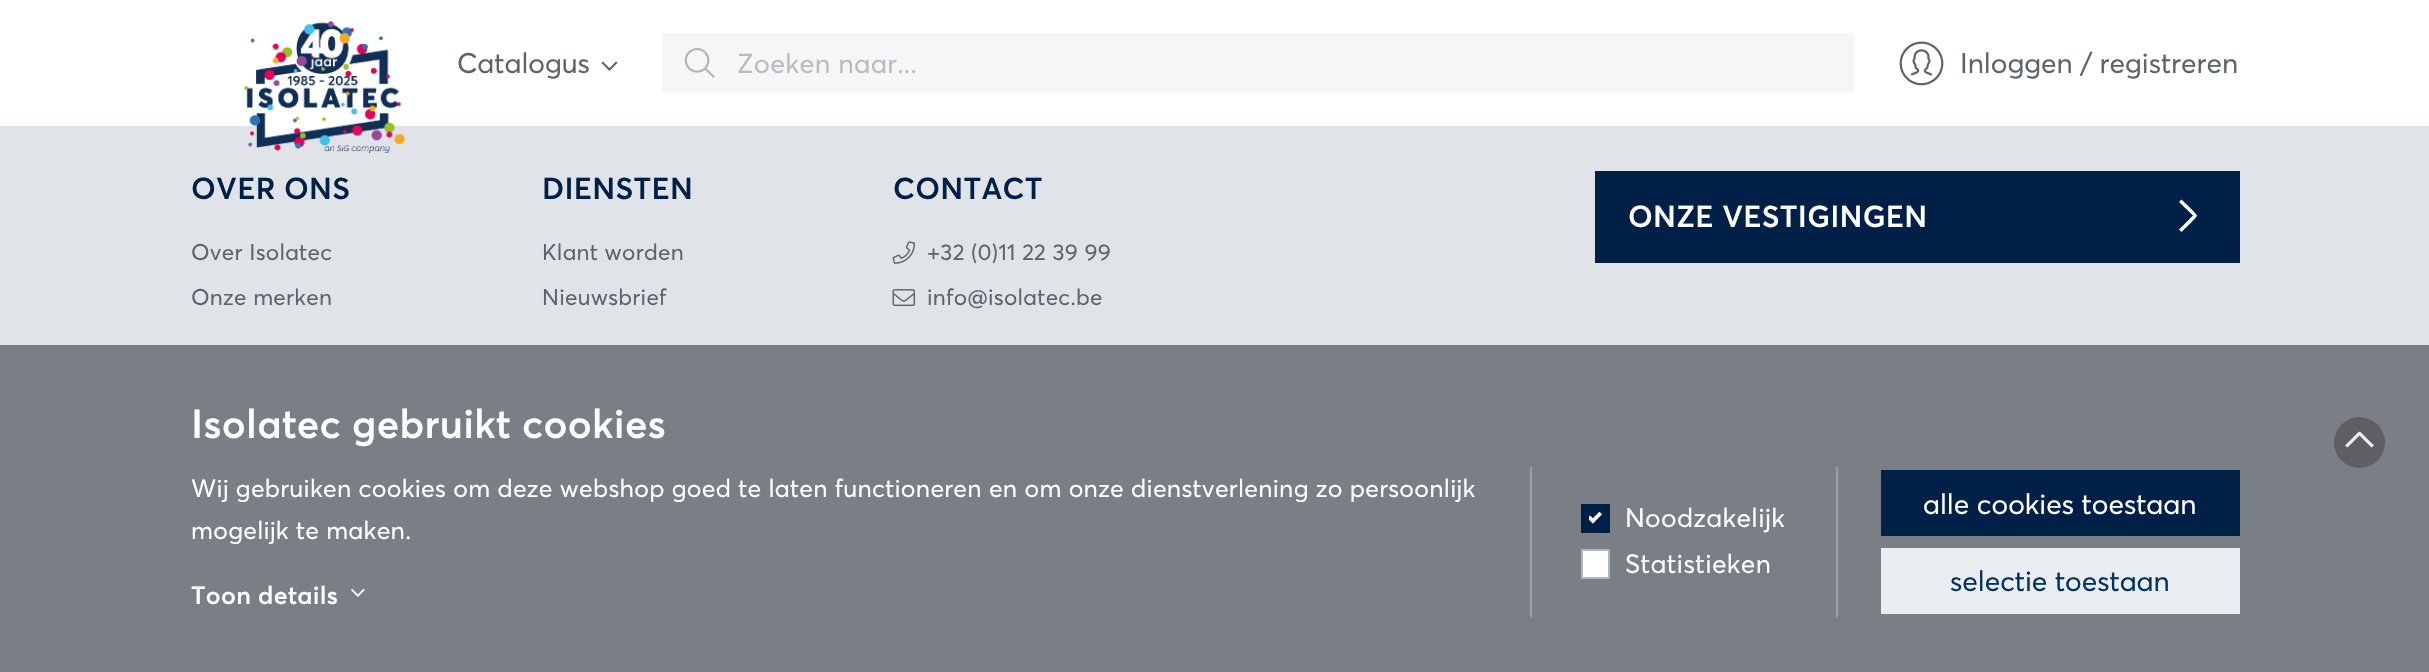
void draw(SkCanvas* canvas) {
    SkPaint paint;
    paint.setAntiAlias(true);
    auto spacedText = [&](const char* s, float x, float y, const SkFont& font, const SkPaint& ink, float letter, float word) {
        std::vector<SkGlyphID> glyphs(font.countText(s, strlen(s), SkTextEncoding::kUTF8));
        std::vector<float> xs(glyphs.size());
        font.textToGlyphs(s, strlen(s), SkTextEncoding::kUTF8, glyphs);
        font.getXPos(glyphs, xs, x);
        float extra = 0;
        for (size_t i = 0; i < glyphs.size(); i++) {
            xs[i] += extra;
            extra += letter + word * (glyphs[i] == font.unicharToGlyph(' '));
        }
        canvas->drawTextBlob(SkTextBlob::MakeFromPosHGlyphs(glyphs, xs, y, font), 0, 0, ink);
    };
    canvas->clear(0xFFE0E4E8);
    paint.setColor(0xFFFFFFFF);
    canvas->drawRect(SkRect::MakeXYWH(0, 0, 2429, 126), paint);
    canvas->drawImageRect(SkImages::DeferredFromEncodedData(SkData::MakeFromFileName("img1.png")), SkRect::MakeXYWH(244, 20, 162, 133), SkSamplingOptions());
    SkFont font1(fontMgr->matchFamilyStyle("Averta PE", SkFontStyle::Normal()), 28.1f);
    font1.setSubpixel(true);
    paint.setColor(0xFF5C636A);
    canvas->drawString("Catalogus", 457, 73, font1, paint);
    canvas->drawImageRect(SkImages::DeferredFromEncodedData(SkData::MakeFromFileName("img2.png")), SkRect::MakeXYWH(601, 61, 17, 10), SkSamplingOptions());
    paint.setColor(0xFFF5F6F7);
    canvas->drawRect(SkRect::MakeXYWH(662, 33, 1192, 60), paint);
    canvas->drawImageRect(SkImages::DeferredFromEncodedData(SkData::MakeFromFileName("img3.png")), SkRect::MakeXYWH(684, 48, 31, 30), SkSamplingOptions());
    SkFont font2(fontMgr->matchFamilyStyle("Averta PE", SkFontStyle::Normal()), 27);
    font2.setSubpixel(true);
    paint.setColor(0xFFB8BBBF);
    spacedText("Zoeken naar...", 737, 73, font2, paint, 0.3f, 0);
    canvas->drawImageRect(SkImages::DeferredFromEncodedData(SkData::MakeFromFileName("img4.png")), SkRect::MakeXYWH(1899, 41, 45, 45), SkSamplingOptions());
    paint.setColor(0xFF5C636A);
    canvas->drawString("Inloggen / registreren", 1960, 73, font1, paint);
    SkFont font3(fontMgr->matchFamilyStyle("Averta PE", SkFontStyle(600, SkFontStyle::kNormal_Width, SkFontStyle::kUpright_Slant)), 30);
    font3.setSubpixel(true);
    paint.setColor(0xFF002048);
    spacedText("OVER ONS", 191, 199, font3, paint, 0.3f, 0);
    SkFont font4(fontMgr->matchFamilyStyle("Averta PE", SkFontStyle::Normal()), 22.5f);
    font4.setSubpixel(true);
    paint.setColor(0xFF5C636A);
    spacedText("Over Isolatec", 191, 260, font4, paint, 0.3f, 0);
    spacedText("Onze merken", 191, 305, font4, paint, 0.3f, 0);
    paint.setColor(0xFF002048);
    spacedText("DIENSTEN", 542, 199, font3, paint, 0.3f, 0);
    paint.setColor(0xFF5C636A);
    spacedText("Klant worden", 542, 260, font4, paint, 0.3f, 0);
    spacedText("Nieuwsbrief", 542, 305, font4, paint, 0.3f, 0);
    paint.setColor(0xFF002048);
    spacedText("CONTACT", 893, 199, font3, paint, 0.3f, 0);
    canvas->drawImageRect(SkImages::DeferredFromEncodedData(SkData::MakeFromFileName("img5.png")), SkRect::MakeXYWH(892, 241, 23, 23), SkSamplingOptions());
    paint.setColor(0xFF5C636A);
    spacedText("+32 (0)11 22 39 99", 927, 260, font4, paint, 0.3f, 0);
    canvas->drawImageRect(SkImages::DeferredFromEncodedData(SkData::MakeFromFileName("img6.png")), SkRect::MakeXYWH(892, 289, 23, 17), SkSamplingOptions());
    spacedText("info@isolatec.be", 927, 305, font4, paint, 0.3f, 0);
    paint.setColor(0xFF002048);
    canvas->drawRect(SkRect::MakeXYWH(1595, 171, 645, 92), paint);
    paint.setColor(0xFFFFFFFF);
    spacedText("ONZE VESTIGINGEN", 1628, 227, font3, paint, 0.3f, 0);
    canvas->drawPath(SkPathBuilder().moveTo(2197, 215.5f).cubicTo(2197, 217.5f, 2183.5f, 230, 2181.5f, 232).lineTo(2179, 229.5f).lineTo(2193, 215.5f).lineTo(2179, 202).lineTo(2181.5f, 199.5f).cubicTo(2183.5f, 201.5f, 2197, 214, 2197, 215.5f).close().detach(), paint);
    paint.setColor(0xFF7A7F85);
    canvas->drawRect(SkRect::MakeXYWH(0, 345, 2429, 327), paint);
    SkFont font5(fontMgr->matchFamilyStyle("Averta PE", SkFontStyle(600, SkFontStyle::kNormal_Width, SkFontStyle::kUpright_Slant)), 40);
    font5.setSubpixel(true);
    paint.setColor(0xFFFFFFFF);
    spacedText("Isolatec gebruikt cookies", 191, 438, font5, paint, 0.3f, 0);
    SkFont font6(fontMgr->matchFamilyStyle("Averta PE", SkFontStyle::Normal()), 24.75f);
    font6.setSubpixel(true);
    spacedText("Wij gebruiken cookies om deze webshop goed te laten functioneren en om onze dienstverlening zo persoonlijk", 191, 497, font6, paint, 0.3f, 0);
    spacedText("mogelijk te maken.", 191, 539, font6, paint, 0.3f, 0);
    SkFont font7(fontMgr->matchFamilyStyle("Averta PE", SkFontStyle(600, SkFontStyle::kNormal_Width, SkFontStyle::kUpright_Slant)), 24.75f);
    font7.setSubpixel(true);
    spacedText("Toon details", 191, 604, font7, paint, 0.3f, 0);
    canvas->drawImageRect(SkImages::DeferredFromEncodedData(SkData::MakeFromFileName("img7.png")), SkRect::MakeXYWH(351, 589, 14, 8), SkSamplingOptions());
    paint.setColor(0xFF9B9FA4);
    canvas->drawRect(SkRect::MakeXYWH(1530, 467, 2, 150), paint);
    paint.setColor(0xFF002048);
    canvas->drawRect(SkRect::MakeXYWH(1581, 504, 29, 29), paint);
    SkFont font8(fontMgr->matchFamilyStyle("Averta PE", SkFontStyle::Normal()), 26.25f);
    font8.setSubpixel(true);
    paint.setColor(0xFFFFFFFF);
    spacedText("Noodzakelijk", 1625, 527, font8, paint, 0.4f, 0);
    canvas->drawImageRect(SkImages::DeferredFromEncodedData(SkData::MakeFromFileName("img8.png")), SkRect::MakeXYWH(1589, 512, 13, 12), SkSamplingOptions());
    canvas->drawRect(SkRect::MakeXYWH(1582, 550, 27, 28), paint);
    paint.setStyle(SkPaint::kStroke_Style);
    paint.setStrokeWidth(2);
    paint.setColor(0xFFADB5BD);
    canvas->drawRect(SkRect::MakeXYWH(1582, 550, 27, 28), paint);
    paint.setStyle(SkPaint::kFill_Style);
    paint.setColor(0xFFFFFFFF);
    spacedText("Statistieken", 1625, 573, font8, paint, 0.4f, 0);
    paint.setColor(0xFF9B9FA4);
    canvas->drawRect(SkRect::MakeXYWH(1836, 467, 2, 150), paint);
    paint.setColor(0xFF002048);
    canvas->drawRect(SkRect::MakeXYWH(1881, 470, 359, 66), paint);
    paint.setColor(0xFFFFFFFF);
    canvas->drawString("alle cookies toestaan", 1923, 514, font1, paint);
    paint.setColor(0xFFEAEDEF);
    canvas->drawRect(SkRect::MakeXYWH(1881, 548, 359, 66), paint);
    paint.setColor(0xFF003264);
    canvas->drawString("selectie toestaan", 1950, 591, font1, paint);
    paint.setColor(0xFF5F5F63);
    canvas->drawCircle(2359.5f, 442.5f, 25.5f, paint);
    paint.setColor(0xFFEBECED);
    canvas->drawPath(SkPathBuilder().moveTo(2359.5f, 435.5f).lineTo(2371.5f, 447.5f).lineTo(2374, 445.5f).lineTo(2360.5f, 432).cubicTo(2360, 431.5f, 2359, 431.5f, 2358.5f, 432).lineTo(2345, 445.5f).lineTo(2347.5f, 447.5f).close().detach(), paint);
}
